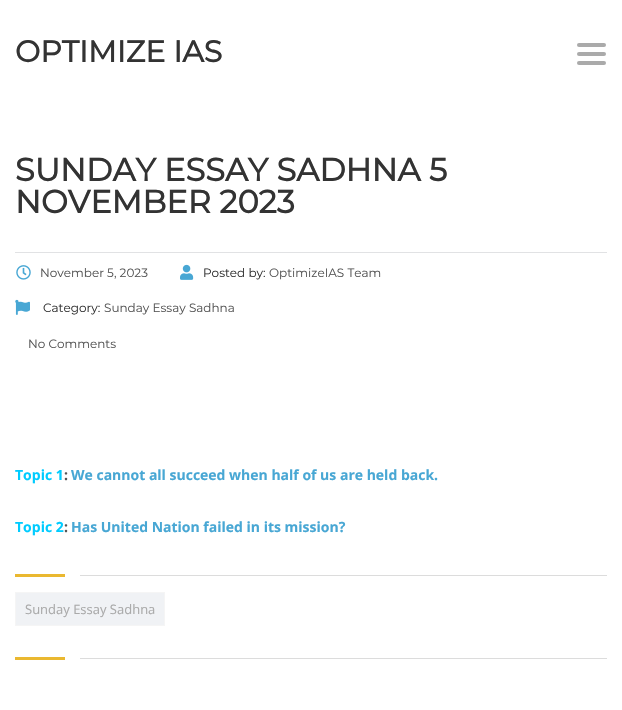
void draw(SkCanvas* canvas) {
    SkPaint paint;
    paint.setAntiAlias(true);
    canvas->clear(0xFFFFFFFF);
    SkFont font1(fontMgr->matchFamilyStyle("Montserrat", SkFontStyle::Bold()), 30);
    font1.setSubpixel(true);
    paint.setColor(0xFF333333);
    canvas->drawString("OPTIMIZE IAS", 15, 62, font1, paint);
    paint.setColor(0xFFAAAAAA);
    canvas->drawRoundRect(SkRect::MakeXYWH(577, 43, 29, 4), 2, 2, paint);
    canvas->drawRoundRect(SkRect::MakeXYWH(577, 52, 29, 4), 2, 2, paint);
    canvas->drawRoundRect(SkRect::MakeXYWH(577, 61, 29, 4), 2, 2, paint);
    paint.setColor(0xFFE1E2E4);
    canvas->drawRect(SkRect::MakeXYWH(15, 252, 592, 1), paint);
    SkFont font2(fontMgr->matchFamilyStyle("Montserrat", SkFontStyle::Bold()), 32);
    font2.setSubpixel(true);
    paint.setColor(0xFF333333);
    canvas->drawString("SUNDAY ESSAY SADHNA 5", 15, 181, font2, paint);
    canvas->drawString("NOVEMBER 2023", 15, 213, font2, paint);
    canvas->drawImageRect(SkImages::DeferredFromEncodedData(SkData::MakeFromFileName("img1.png")), SkRect::MakeXYWH(16, 265, 15, 15), SkSamplingOptions());
    SkFont font3(fontMgr->matchFamilyStyle("Montserrat", SkFontStyle(100, SkFontStyle::kNormal_Width, SkFontStyle::kUpright_Slant)), 12);
    font3.setSubpixel(true);
    paint.setColor(0xFF555555);
    canvas->drawString("November 5, 2023", 40, 277, font3, paint);
    canvas->drawImageRect(SkImages::DeferredFromEncodedData(SkData::MakeFromFileName("img2.png")), SkRect::MakeXYWH(180, 264, 14, 16), SkSamplingOptions());
    paint.setColor(0xFF333333);
    canvas->drawString("Posted by:", 203, 277, font3, paint);
    paint.setColor(0xFF555555);
    canvas->drawString("OptimizeIAS Team", 269, 277, font3, paint);
    canvas->drawImageRect(SkImages::DeferredFromEncodedData(SkData::MakeFromFileName("img3.png")), SkRect::MakeXYWH(15, 299, 15, 16), SkSamplingOptions());
    paint.setColor(0xFF333333);
    canvas->drawString("Category:", 43, 312, font3, paint);
    paint.setColor(0xFF555555);
    canvas->drawString("Sunday Essay Sadhna", 104, 312, font3, paint);
    canvas->drawString("No Comments", 28, 348, font3, paint);
    SkFont font4(fontMgr->matchFamilyStyle("Open Sans", SkFontStyle::Bold()), 14);
    font4.setSubpixel(true);
    paint.setColor(0xFF00CCFF);
    canvas->drawString("Topic 1", 15, 480, font4, paint);
    paint.setColor(0xFF555555);
    canvas->drawString(":", 64, 480, font4, paint);
    paint.setColor(0xFF48A7D4);
    canvas->drawString("We cannot all succeed when half of us are held back.", 71, 480, font4, paint);
    paint.setColor(0xFF00CCFF);
    canvas->drawString("Topic 2", 15, 532, font4, paint);
    paint.setColor(0xFF555555);
    canvas->drawString(":", 64, 532, font4, paint);
    paint.setColor(0xFF48A7D4);
    canvas->drawString("Has United Nation failed in its mission?", 71, 532, font4, paint);
    paint.setColor(0xFFEAB830);
    canvas->drawRect(SkRect::MakeXYWH(15, 574, 50, 3), paint);
    paint.setColor(0xFFDCDCDC);
    canvas->drawRect(SkRect::MakeXYWH(80, 575, 527, 1), paint);
    paint.setColor(0xFFF0F2F5);
    canvas->drawRect(SkRect::MakeXYWH(15.5f, 592.5f, 149, 33), paint);
    paint.setStyle(SkPaint::kStroke_Style);
    paint.setStrokeWidth(1);
    paint.setColor(0xFFF5F5F5);
    canvas->drawRect(SkRect::MakeXYWH(15.5f, 592.5f, 149, 33), paint);
    SkFont font5(fontMgr->matchFamilyStyle("Open Sans", SkFontStyle::Normal()), 13);
    font5.setSubpixel(true);
    paint.setStyle(SkPaint::kFill_Style);
    paint.setColor(0xFFAAAAAA);
    canvas->drawString("Sunday Essay Sadhna", 25, 614, font5, paint);
    paint.setColor(0xFFEAB830);
    canvas->drawRect(SkRect::MakeXYWH(15, 657, 50, 3), paint);
    paint.setColor(0xFFDCDCDC);
    canvas->drawRect(SkRect::MakeXYWH(80, 658, 527, 1), paint);
}
